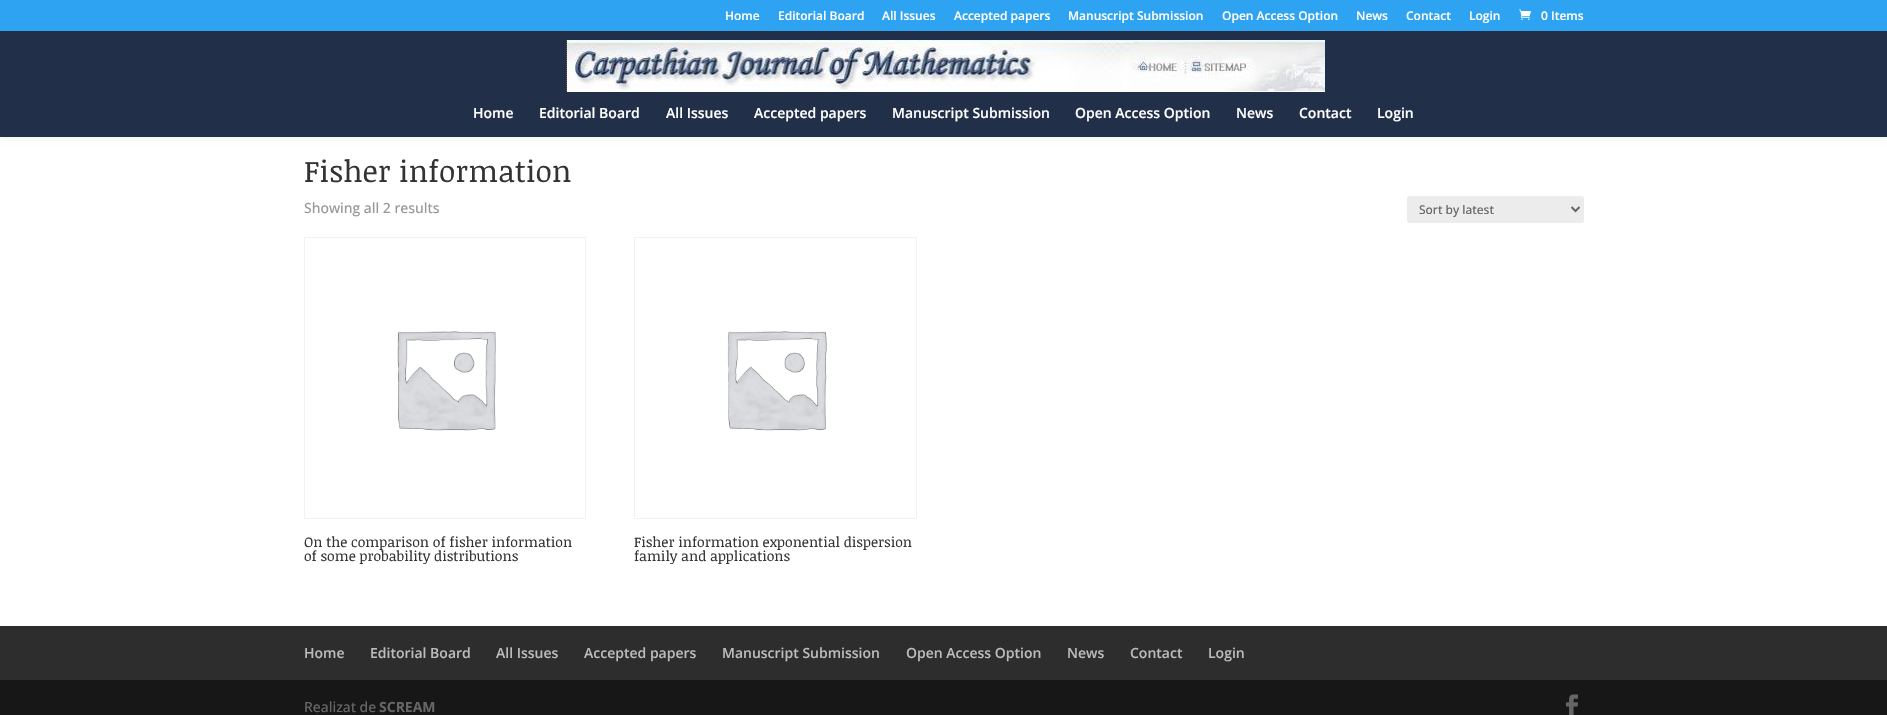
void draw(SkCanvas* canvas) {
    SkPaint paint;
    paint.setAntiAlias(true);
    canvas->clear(0xFFFFFFFF);
    paint.setColor(0x1A000000);
    paint.setMaskFilter(SkMaskFilter::MakeBlur(kNormal_SkBlurStyle, 3.5f));
    canvas->drawRect(SkRect::MakeXYWH(0, 31, 1887, 106), paint);
    paint.setMaskFilter(nullptr);
    paint.setColor(0xFF2EA3F2);
    canvas->drawRect(SkRect::MakeXYWH(0, 0, 1887, 31), paint);
    SkFont font1(fontMgr->matchFamilyStyle("Open Sans", SkFontStyle(600, SkFontStyle::kNormal_Width, SkFontStyle::kUpright_Slant)), 12);
    font1.setSubpixel(true);
    paint.setColor(0xFFFFFFFF);
    canvas->drawString("Home", 725, 20, font1, paint);
    canvas->drawString("Editorial Board", 778, 20, font1, paint);
    canvas->drawString("All Issues", 882, 20, font1, paint);
    canvas->drawString("Accepted papers", 954, 20, font1, paint);
    canvas->drawString("Manuscript Submission", 1068, 20, font1, paint);
    canvas->drawString("Open Access Option", 1222, 20, font1, paint);
    canvas->drawString("News", 1356, 20, font1, paint);
    canvas->drawString("Contact", 1406, 20, font1, paint);
    canvas->drawString("Login", 1469, 20, font1, paint);
    canvas->drawImageRect(SkImages::DeferredFromEncodedData(SkData::MakeFromFileName("img1.png")), SkRect::MakeXYWH(1519, 9, 12, 11), SkSamplingOptions());
    canvas->drawString("0 Items", 1541, 20, font1, paint);
    paint.setColor(0xFF212F49);
    canvas->drawRect(SkRect::MakeXYWH(0, 31, 1887, 106), paint);
    canvas->drawImageRect(SkImages::DeferredFromEncodedData(SkData::MakeFromFileName("img2.png")), SkRect::MakeXYWH(566, 40, 759, 52), SkSamplingOptions());
    SkFont font2(fontMgr->matchFamilyStyle("Open Sans", SkFontStyle(600, SkFontStyle::kNormal_Width, SkFontStyle::kUpright_Slant)), 14);
    font2.setSubpixel(true);
    paint.setColor(0xFFFFFFFF);
    canvas->drawString("Home", 473, 118, font2, paint);
    canvas->drawString("Editorial Board", 539, 118, font2, paint);
    canvas->drawString("All Issues", 666, 118, font2, paint);
    canvas->drawString("Accepted papers", 754, 118, font2, paint);
    canvas->drawString("Manuscript Submission", 892, 118, font2, paint);
    canvas->drawString("Open Access Option", 1075, 118, font2, paint);
    canvas->drawString("News", 1236, 118, font2, paint);
    canvas->drawString("Contact", 1299, 118, font2, paint);
    canvas->drawString("Login", 1377, 118, font2, paint);
    SkFont font3(fontMgr->matchFamilyStyle("Noticia Text", SkFontStyle::Normal()), 30);
    font3.setSubpixel(true);
    paint.setColor(0xFF333333);
    canvas->drawString("Fisher information", 304, 182, font3, paint);
    SkFont font4(fontMgr->matchFamilyStyle("Open Sans", SkFontStyle(500, SkFontStyle::kNormal_Width, SkFontStyle::kUpright_Slant)), 14);
    font4.setSubpixel(true);
    paint.setColor(0xFF999999);
    canvas->drawString("Showing all 2 results", 304, 213, font4, paint);
    paint.setColor(0xFFECECEC);
    canvas->drawRoundRect(SkRect::MakeXYWH(1407, 196, 177, 27), 3, 3, paint);
    paint.setStyle(SkPaint::kStroke_Style);
    paint.setStrokeWidth(2);
    paint.setColor(0xFF666666);
    canvas->drawPath(SkPathBuilder().moveTo(1571.5f, 207).lineTo(1575.5f, 211).lineTo(1579.5f, 207).detach(), paint);
    SkFont font5(fontMgr->matchFamilyStyle("Open Sans", SkFontStyle(500, SkFontStyle::kNormal_Width, SkFontStyle::kUpright_Slant)), 12);
    font5.setSubpixel(true);
    paint.setStyle(SkPaint::kFill_Style);
    canvas->drawString("Sort by latest", 1419, 214, font5, paint);
    paint.setStyle(SkPaint::kStroke_Style);
    paint.setStrokeWidth(1);
    paint.setColor(0xFFF2F2F2);
    canvas->drawRect(SkRect::MakeXYWH(304.5f, 237.5f, 281, 281), paint);
    canvas->drawImageRect(SkImages::DeferredFromEncodedData(SkData::MakeFromFileName("img3.png")), SkRect::MakeXYWH(397, 331, 99, 100), SkSamplingOptions());
    SkFont font6(fontMgr->matchFamilyStyle("Noticia Text", SkFontStyle::Normal()), 14);
    font6.setSubpixel(true);
    paint.setStyle(SkPaint::kFill_Style);
    paint.setColor(0xFF333333);
    canvas->drawString("On the comparison of fisher information", 304, 547, font6, paint);
    canvas->drawString("of some probability distributions", 304, 561, font6, paint);
    paint.setStyle(SkPaint::kStroke_Style);
    paint.setColor(0xFFF2F2F2);
    canvas->drawRect(SkRect::MakeXYWH(634.5f, 237.5f, 282, 281), paint);
    canvas->drawImageRect(SkImages::DeferredFromEncodedData(SkData::MakeFromFileName("img4.png")), SkRect::MakeXYWH(727, 331, 100, 100), SkSamplingOptions());
    paint.setStyle(SkPaint::kFill_Style);
    paint.setColor(0xFF333333);
    canvas->drawString("Fisher information exponential dispersion", 634, 547, font6, paint);
    canvas->drawString("family and applications", 634, 561, font6, paint);
    paint.setColor(0xFF2D2D2D);
    canvas->drawRect(SkRect::MakeXYWH(0, 626, 1887, 54), paint);
    paint.setColor(0xFFBBBBBB);
    canvas->drawString("Home", 304, 658, font2, paint);
    canvas->drawString("Editorial Board", 370, 658, font2, paint);
    canvas->drawString("All Issues", 496, 658, font2, paint);
    canvas->drawString("Accepted papers", 584, 658, font2, paint);
    canvas->drawString("Manuscript Submission", 722, 658, font2, paint);
    canvas->drawString("Open Access Option", 906, 658, font2, paint);
    canvas->drawString("News", 1067, 658, font2, paint);
    canvas->drawString("Contact", 1130, 658, font2, paint);
    canvas->drawString("Login", 1208, 658, font2, paint);
    paint.setColor(0xFF171717);
    canvas->drawRect(SkRect::MakeXYWH(0, 680, 1887, 35), paint);
    paint.setColor(0xFF666666);
    canvas->drawString("Realizat de", 304, 712, font4, paint);
    SkFont font7(fontMgr->matchFamilyStyle("Open Sans", SkFontStyle::Bold()), 14);
    font7.setSubpixel(true);
    canvas->drawString("SCREAM", 379, 712, font7, paint);
    canvas->drawImageRect(SkImages::DeferredFromEncodedData(SkData::MakeFromFileName("img5.png")), SkRect::MakeXYWH(1566, 694, 12, 21), SkSamplingOptions());
}
